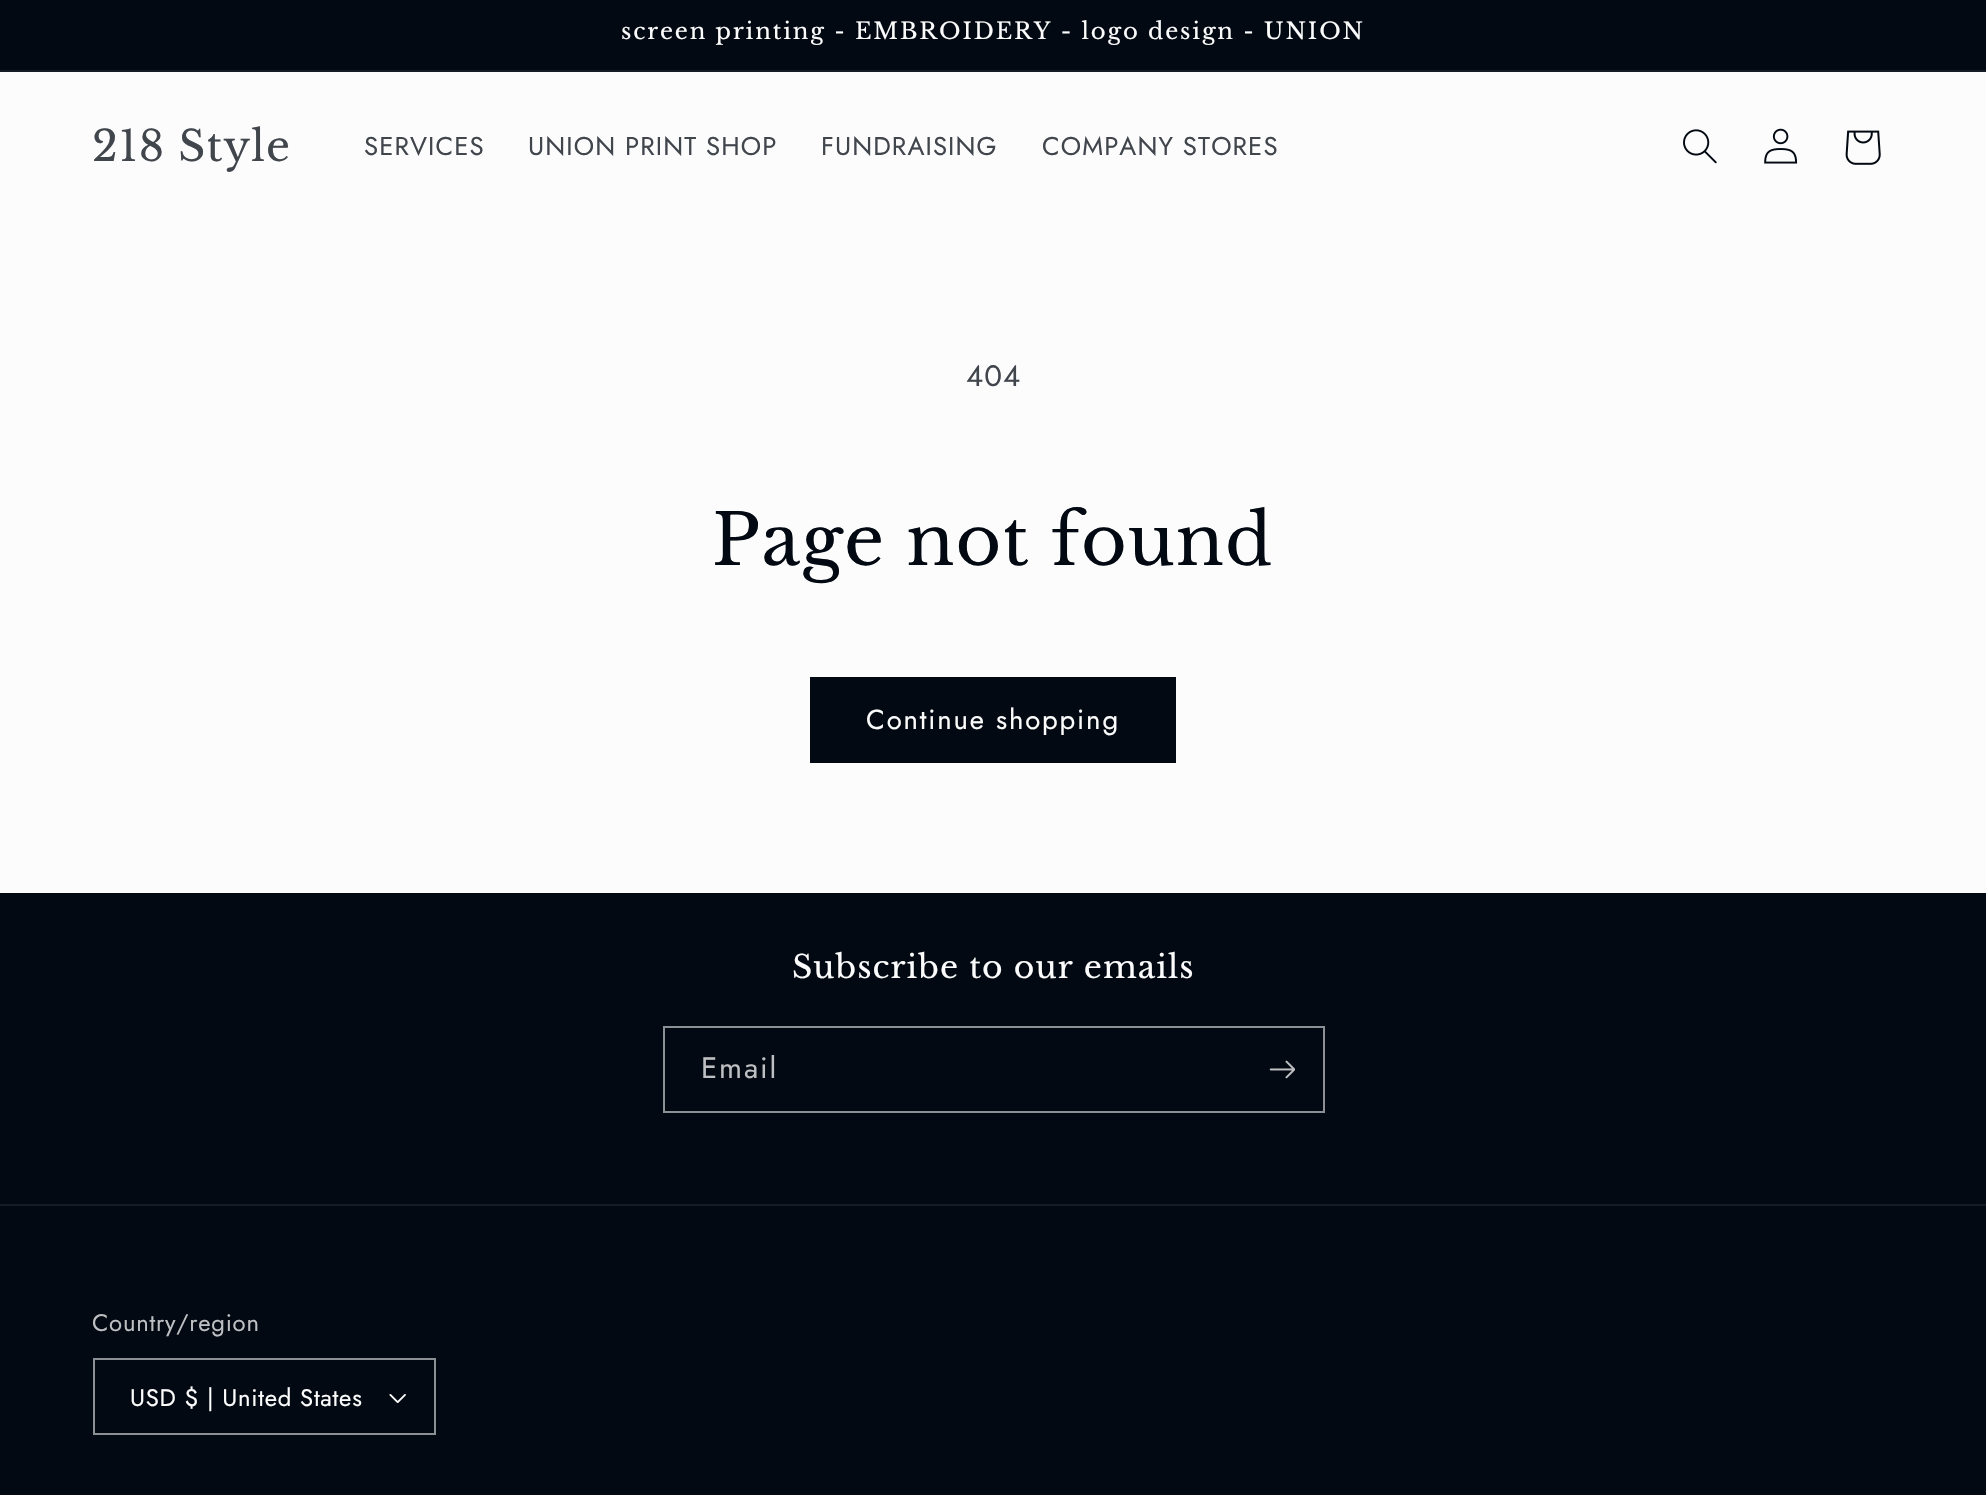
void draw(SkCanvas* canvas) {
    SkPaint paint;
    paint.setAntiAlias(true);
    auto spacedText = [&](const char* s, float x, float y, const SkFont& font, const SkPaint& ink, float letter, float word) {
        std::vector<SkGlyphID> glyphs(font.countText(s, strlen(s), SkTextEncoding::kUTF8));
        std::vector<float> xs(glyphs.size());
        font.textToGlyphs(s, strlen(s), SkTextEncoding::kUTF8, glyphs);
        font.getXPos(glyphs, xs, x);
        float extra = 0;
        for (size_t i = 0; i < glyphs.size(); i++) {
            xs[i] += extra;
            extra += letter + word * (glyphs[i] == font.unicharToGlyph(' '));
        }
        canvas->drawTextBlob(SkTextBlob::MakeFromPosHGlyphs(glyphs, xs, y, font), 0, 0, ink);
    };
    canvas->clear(0xFFFCFCFC);
    paint.setColor(0xFF020912);
    canvas->drawRect(SkRect::MakeXYWH(0, 0, 1986, 70), paint);
    paint.setColor(0xFF161C25);
    canvas->drawRect(SkRect::MakeXYWH(0, 70, 1986, 2), paint);
    SkFont font1(fontMgr->matchFamilyStyle("Libre Baskerville", SkFontStyle::Normal()), 22.75f);
    font1.setSubpixel(true);
    paint.setColor(0xFFFCFCFC);
    spacedText("screen printing - EMBROIDERY - logo design - UNION", 621, 39, font1, paint, 1.85f, 0);
    SkFont font2(fontMgr->matchFamilyStyle("Libre Baskerville", SkFontStyle::Normal()), 42);
    font2.setSubpixel(true);
    paint.setColor(0xFF41464D);
    spacedText("218 Style", 92, 161, font2, paint, 1.05f, 0);
    SkFont font3(fontMgr->matchFamilyStyle("Jost", SkFontStyle::Normal()), 25.75f);
    font3.setSubpixel(true);
    spacedText("SERVICES", 364, 155, font3, paint, 1.1f, 0);
    spacedText("UNION PRINT SHOP", 528, 155, font3, paint, 1.1f, 0);
    spacedText("FUNDRAISING", 821, 155, font3, paint, 1.1f, 0);
    spacedText("COMPANY STORES", 1042, 155, font3, paint, 1.1f, 0);
    canvas->drawImageRect(SkImages::DeferredFromEncodedData(SkData::MakeFromFileName("img1.png")), SkRect::MakeXYWH(1683, 129, 34, 35), SkSamplingOptions());
    canvas->drawImageRect(SkImages::DeferredFromEncodedData(SkData::MakeFromFileName("img2.png")), SkRect::MakeXYWH(1764, 128, 34, 36), SkSamplingOptions());
    canvas->drawImageRect(SkImages::DeferredFromEncodedData(SkData::MakeFromFileName("img3.png")), SkRect::MakeXYWH(1845, 130, 36, 35), SkSamplingOptions());
    SkFont font4(fontMgr->matchFamilyStyle("Jost", SkFontStyle::Normal()), 29.5f);
    font4.setSubpixel(true);
    spacedText("404", 966, 386, font4, paint, 1.1f, 0);
    SkFont font5(fontMgr->matchFamilyStyle("Libre Baskerville", SkFontStyle::Normal()), 70);
    font5.setSubpixel(true);
    paint.setColor(0xFF020912);
    spacedText("Page not found", 712, 565, font5, paint, 1.05f, 0);
    canvas->drawRect(SkRect::MakeXYWH(810, 677, 366, 86), paint);
    SkFont font6(fontMgr->matchFamilyStyle("Jost", SkFontStyle::Normal()), 27.5f);
    font6.setSubpixel(true);
    paint.setColor(0xFFFCFCFC);
    spacedText("Continue shopping", 866, 729, font6, paint, 1.85f, 0);
    paint.setColor(0xFF020912);
    canvas->drawRect(SkRect::MakeXYWH(0, 893, 1986, 602), paint);
    SkFont font7(fontMgr->matchFamilyStyle("Libre Baskerville", SkFontStyle::Normal()), 31.5f);
    font7.setSubpixel(true);
    paint.setColor(0xFFFCFCFC);
    spacedText("Subscribe to our emails", 792, 978, font7, paint, 1.05f, 0);
    paint.setStyle(SkPaint::kStroke_Style);
    paint.setStrokeWidth(2);
    paint.setColor(0xFF8C8F93);
    canvas->drawRect(SkRect::MakeXYWH(664, 1027, 660, 85), paint);
    paint.setStyle(SkPaint::kFill_Style);
    paint.setColor(0xFFBEBFC2);
    spacedText("Email", 701, 1078, font4, paint, 1.85f, 0);
    canvas->drawImageRect(SkImages::DeferredFromEncodedData(SkData::MakeFromFileName("img4.png")), SkRect::MakeXYWH(1269, 1060, 26, 19), SkSamplingOptions());
    paint.setColor(0xFF161C25);
    canvas->drawRect(SkRect::MakeXYWH(0, 1204, 1986, 2), paint);
    SkFont font8(fontMgr->matchFamilyStyle("Jost", SkFontStyle::Normal()), 23.9f);
    font8.setSubpixel(true);
    paint.setColor(0xFFBEBFC2);
    spacedText("Country/region", 92, 1331, font8, paint, 0.75f, 0);
    canvas->drawImageRect(SkImages::DeferredFromEncodedData(SkData::MakeFromFileName("img5.png")), SkRect::MakeXYWH(389, 1394, 17, 9), SkSamplingOptions());
    paint.setStyle(SkPaint::kStroke_Style);
    paint.setColor(0xFF8C8F93);
    canvas->drawRect(SkRect::MakeXYWH(94, 1359, 341, 75), paint);
    paint.setStyle(SkPaint::kFill_Style);
    paint.setColor(0xFFFCFCFC);
    spacedText("USD $ | United States", 130, 1406, font8, paint, 0.75f, 0);
}
